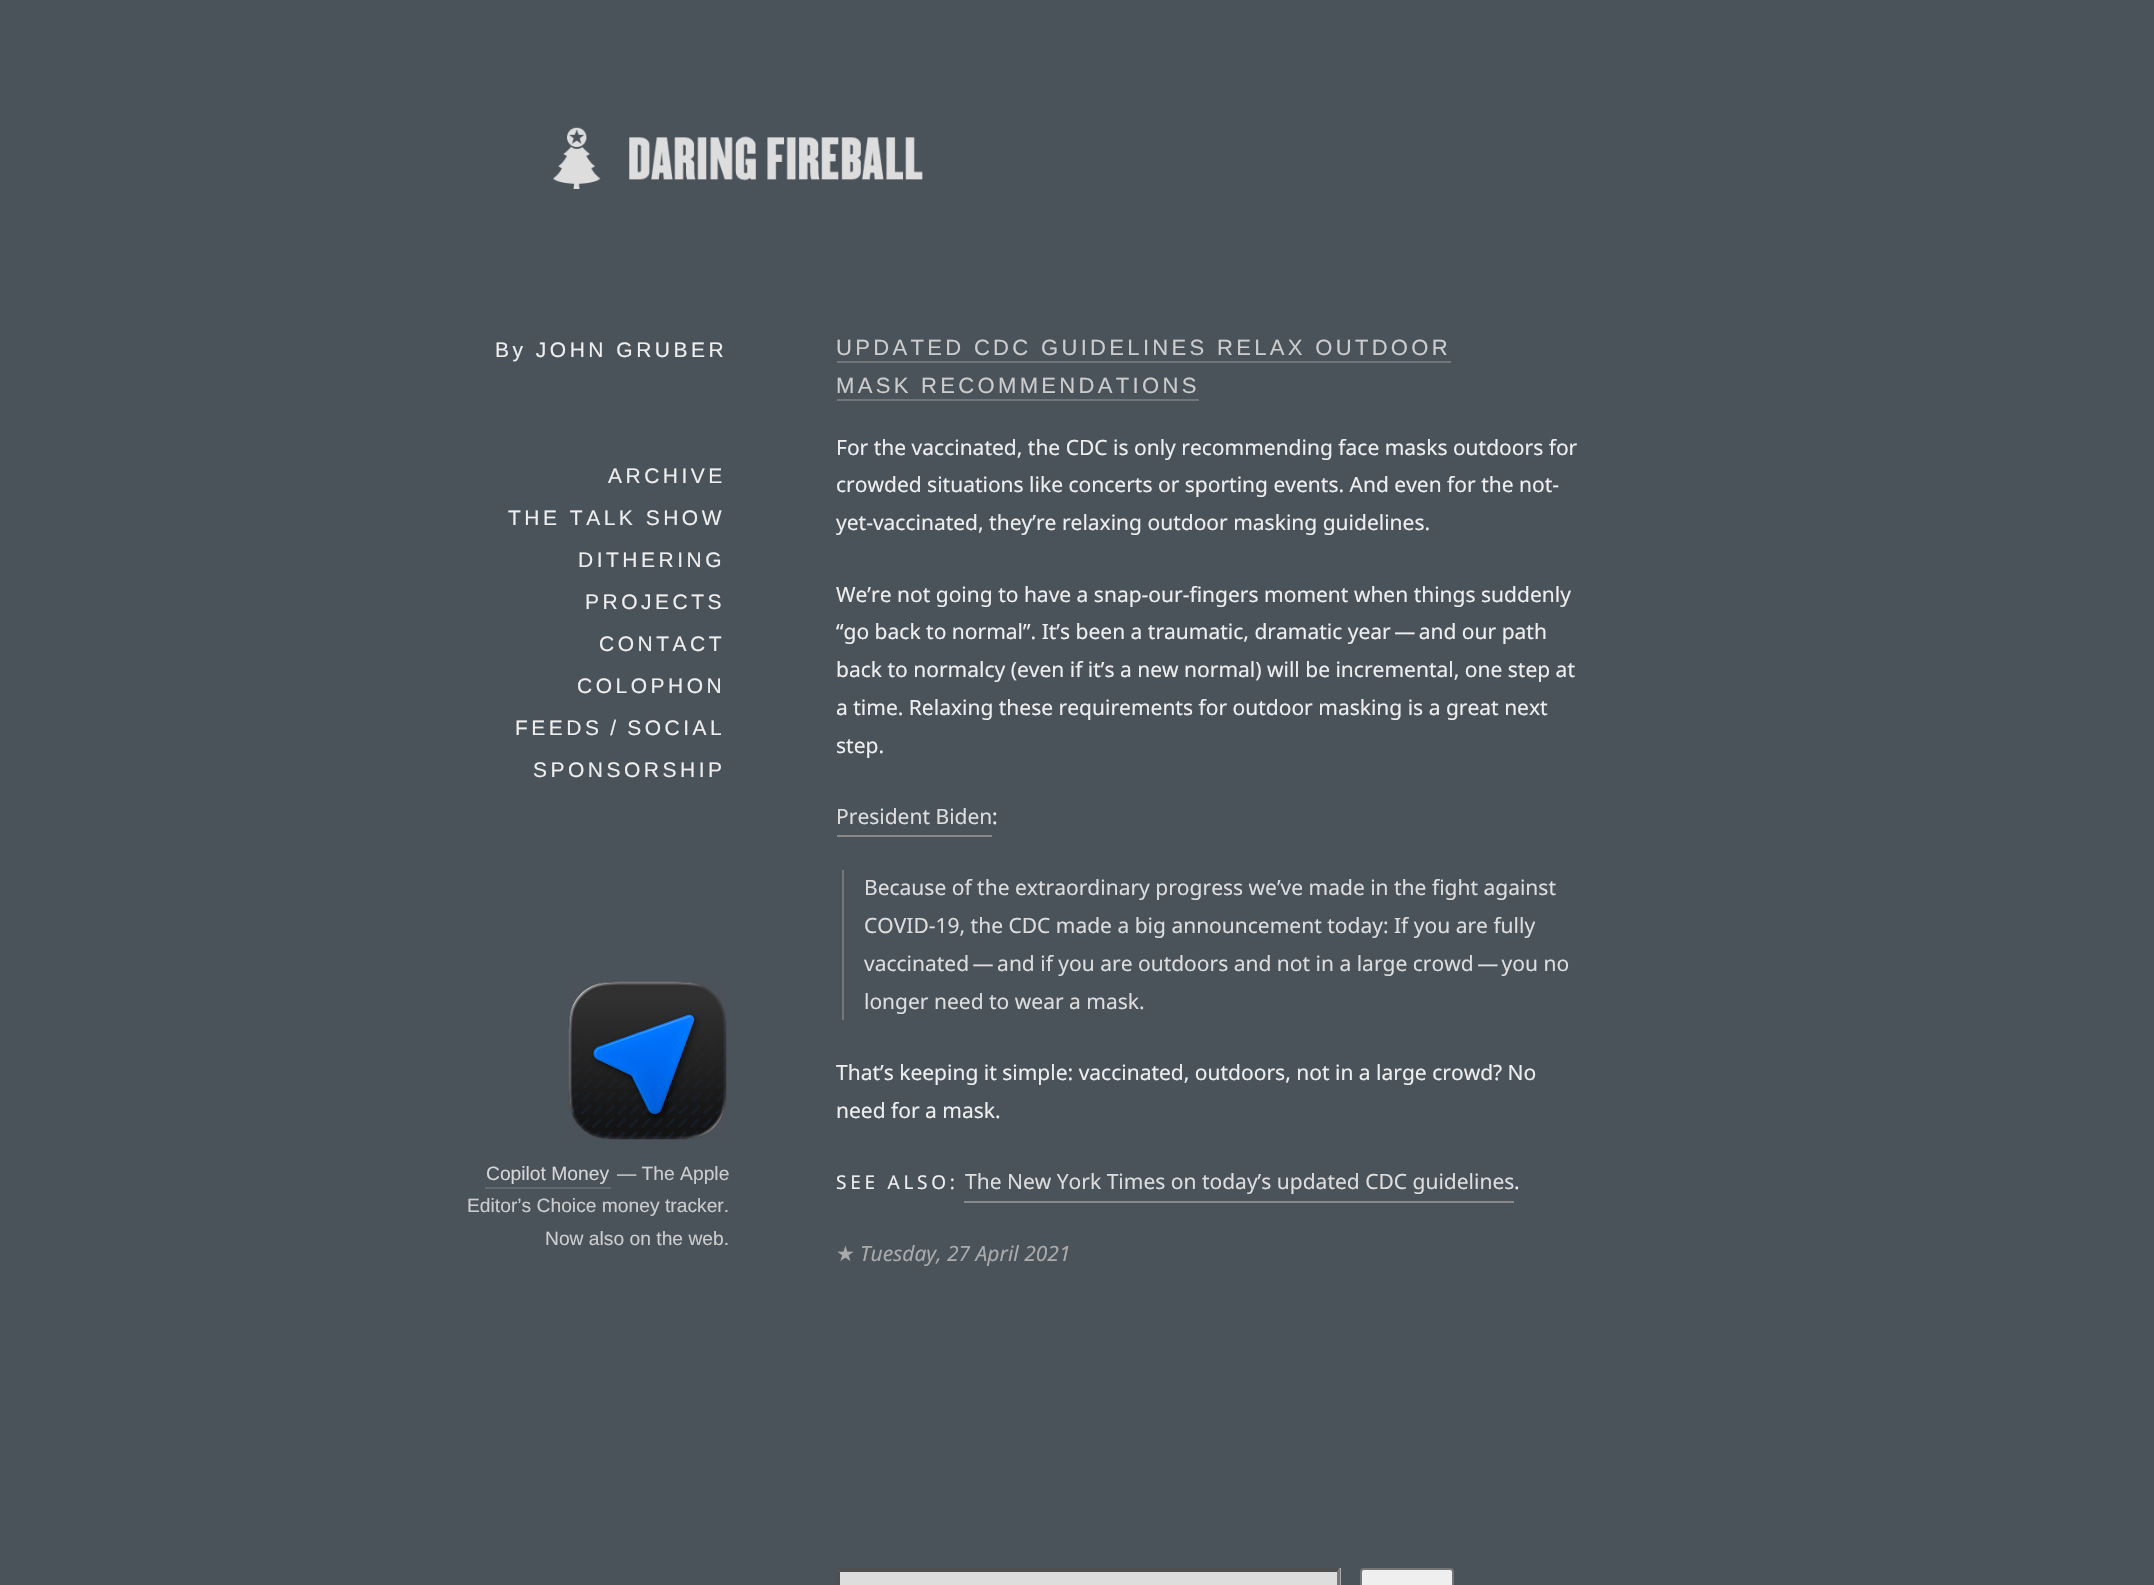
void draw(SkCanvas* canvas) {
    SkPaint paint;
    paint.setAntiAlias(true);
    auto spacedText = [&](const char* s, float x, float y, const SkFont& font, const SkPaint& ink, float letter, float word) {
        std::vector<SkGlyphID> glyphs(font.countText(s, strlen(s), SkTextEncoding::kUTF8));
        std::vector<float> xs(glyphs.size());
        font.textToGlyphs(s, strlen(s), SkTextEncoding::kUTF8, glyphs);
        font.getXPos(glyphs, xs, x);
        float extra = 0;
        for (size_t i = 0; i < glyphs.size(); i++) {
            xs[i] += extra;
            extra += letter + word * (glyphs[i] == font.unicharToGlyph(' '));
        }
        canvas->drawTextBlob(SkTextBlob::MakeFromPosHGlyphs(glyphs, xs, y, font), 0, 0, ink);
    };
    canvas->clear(0xFF4A525A);
    canvas->drawImageRect(SkImages::DeferredFromEncodedData(SkData::MakeFromFileName("img1.png")), SkRect::MakeXYWH(553, 127, 370, 62), SkSamplingOptions());
    SkFont font1(fontMgr->matchFamilyStyle("Liberation Sans", SkFontStyle::Normal()), 21);
    font1.setSubpixel(true);
    paint.setColor(0xFFEEEEEE);
    spacedText("By JOHN GRUBER", 495, 357, font1, paint, 3.5f, 0);
    spacedText("ARCHIVE", 608, 483, font1, paint, 3.5f, 0);
    spacedText("THE TALK SHOW", 508, 525, font1, paint, 3.5f, 0);
    spacedText("DITHERING", 578, 567, font1, paint, 3.5f, 0);
    spacedText("PROJECTS", 585, 609, font1, paint, 3.5f, 0);
    spacedText("CONTACT", 599, 651, font1, paint, 3.5f, 0);
    spacedText("COLOPHON", 577, 693, font1, paint, 3.5f, 0);
    spacedText("FEEDS / SOCIAL", 515, 735, font1, paint, 3.5f, 0);
    spacedText("SPONSORSHIP", 533, 777, font1, paint, 3.5f, 0);
    canvas->drawImageRect(SkImages::DeferredFromEncodedData(SkData::MakeFromFileName("img2.png")), SkRect::MakeXYWH(568, 981, 159, 159), SkSamplingOptions());
    SkFont font2(fontMgr->matchFamilyStyle("Liberation Sans", SkFontStyle::Normal()), 19.25f);
    font2.setSubpixel(true);
    paint.setColor(0xFFD5D5D5);
    canvas->drawString("Copilot Money", 486, 1180, font2, paint);
    paint.setColor(0xFF626A73);
    canvas->drawRect(SkRect::MakeXYWH(485, 1187, 126, 2), paint);
    paint.setColor(0xFFCCCCCC);
    canvas->drawString("— The Apple", 617, 1180, font2, paint);
    canvas->drawString("Editor’s Choice money tracker.", 467, 1212, font2, paint);
    canvas->drawString("Now also on the web.", 545, 1245, font2, paint);
    SkFont font3(fontMgr->matchFamilyStyle("Liberation Sans", SkFontStyle::Normal()), 22.05f);
    font3.setSubpixel(true);
    spacedText("UPDATED CDC GUIDELINES RELAX OUTDOOR", 836, 355, font3, paint, 3.3f, 0);
    paint.setColor(0xFF72767A);
    canvas->drawRect(SkRect::MakeXYWH(837, 361, 614, 2), paint);
    paint.setColor(0xFFCCCCCC);
    spacedText("MASK RECOMMENDATIONS", 836, 393, font3, paint, 3.3f, 0);
    paint.setColor(0xFF72767A);
    canvas->drawRect(SkRect::MakeXYWH(837, 399, 362, 2), paint);
    SkFont font4(fontMgr->matchFamilyStyle("Noto Sans", SkFontStyle::Normal()), 21);
    font4.setSubpixel(true);
    paint.setColor(0xFFEEEEEE);
    canvas->drawString("For the vaccinated, the CDC is only recommending face masks outdoors for", 836, 455, font4, paint);
    canvas->drawString("crowded situations like concerts or sporting events. And even for the not-", 836, 492, font4, paint);
    canvas->drawString("yet-vaccinated, they’re relaxing outdoor masking guidelines.", 836, 530, font4, paint);
    canvas->drawString("We’re not going to have a snap-our-fingers moment when things suddenly", 836, 602, font4, paint);
    canvas->drawString("“go back to normal”. It’s been a traumatic, dramatic year — and our path", 836, 639, font4, paint);
    canvas->drawString("back to normalcy (even if it’s a new normal) will be incremental, one step at", 836, 677, font4, paint);
    canvas->drawString("a time. Relaxing these requirements for outdoor masking is a great next", 836, 715, font4, paint);
    canvas->drawString("step.", 836, 753, font4, paint);
    paint.setColor(0xFFDDDDDD);
    canvas->drawString("President Biden", 836, 824, font4, paint);
    paint.setColor(0xFF888888);
    canvas->drawRect(SkRect::MakeXYWH(837, 835, 155, 2), paint);
    paint.setColor(0xFFEEEEEE);
    canvas->drawString(":", 992, 824, font4, paint);
    paint.setColor(0xFF777777);
    canvas->drawRect(SkRect::MakeXYWH(842, 870, 2, 150), paint);
    paint.setColor(0xFFDDDDDD);
    canvas->drawString("Because of the extraordinary progress we’ve made in the fight against", 864, 895, font4, paint);
    canvas->drawString("COVID-19, the CDC made a big announcement today: If you are fully", 864, 933, font4, paint);
    canvas->drawString("vaccinated — and if you are outdoors and not in a large crowd — you no", 864, 971, font4, paint);
    canvas->drawString("longer need to wear a mask.", 864, 1009, font4, paint);
    paint.setColor(0xFFEEEEEE);
    canvas->drawString("That’s keeping it simple: vaccinated, outdoors, not in a large crowd? No", 836, 1080, font4, paint);
    canvas->drawString("need for a mask.", 836, 1118, font4, paint);
    SkFont font5(fontMgr->matchFamilyStyle("Noto Sans", SkFontStyle::Normal()), 19);
    font5.setSubpixel(true);
    spacedText("SEE ALSO:", 836, 1189, font5, paint, 3.75f, 0);
    paint.setColor(0xFFDDDDDD);
    canvas->drawString("The New York Times on today’s updated CDC guidelines", 965, 1189, font4, paint);
    paint.setColor(0xFF888888);
    canvas->drawRect(SkRect::MakeXYWH(964, 1201, 550, 2), paint);
    paint.setColor(0xFFEEEEEE);
    canvas->drawString(".", 1514, 1189, font4, paint);
    SkFont font6(fontMgr->matchFamilyStyle("DejaVu Sans", SkFontStyle::Normal()), 21);
    font6.setSubpixel(true);
    paint.setColor(0xFFAAAAAA);
    canvas->drawString("★", 836, 1261, font6, paint);
    SkFont font7(fontMgr->matchFamilyStyle("Noto Sans", SkFontStyle::Italic()), 21);
    font7.setSubpixel(true);
    canvas->drawString("Tuesday, 27 April 2021", 860, 1261, font7, paint);
    paint.setColor(0xFFDDDDDD);
    canvas->drawRect(SkRect::MakeXYWH(837, 1568, 504, 17), paint);
    paint.setColor(0xFF4F4F4F);
    canvas->drawPath(SkPathBuilder().moveTo(836, 1568).lineTo(1340, 1568).lineTo(1337, 1572).lineTo(840, 1572).close().detach(), paint);
    paint.setColor(0xFF767676);
    canvas->drawPath(SkPathBuilder().moveTo(1340.5f, 1568).lineTo(1340.5f, 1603).lineTo(1337, 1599.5f).lineTo(1337, 1571.5f).close().detach(), paint);
    paint.setColor(0xFF4F4F4F);
    canvas->drawPath(SkPathBuilder().moveTo(836.5f, 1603).lineTo(836.5f, 1568).lineTo(840, 1571.5f).lineTo(840, 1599.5f).close().detach(), paint);
    paint.setColor(0xFFEFEFEF);
    canvas->drawRoundRect(SkRect::MakeXYWH(1361, 1569, 92, 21), 3, 3, paint);
    paint.setStyle(SkPaint::kStroke_Style);
    paint.setStrokeWidth(2);
    paint.setColor(0xFF767676);
    canvas->drawRoundRect(SkRect::MakeXYWH(1361, 1569, 92, 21), 3, 3, paint);
}
